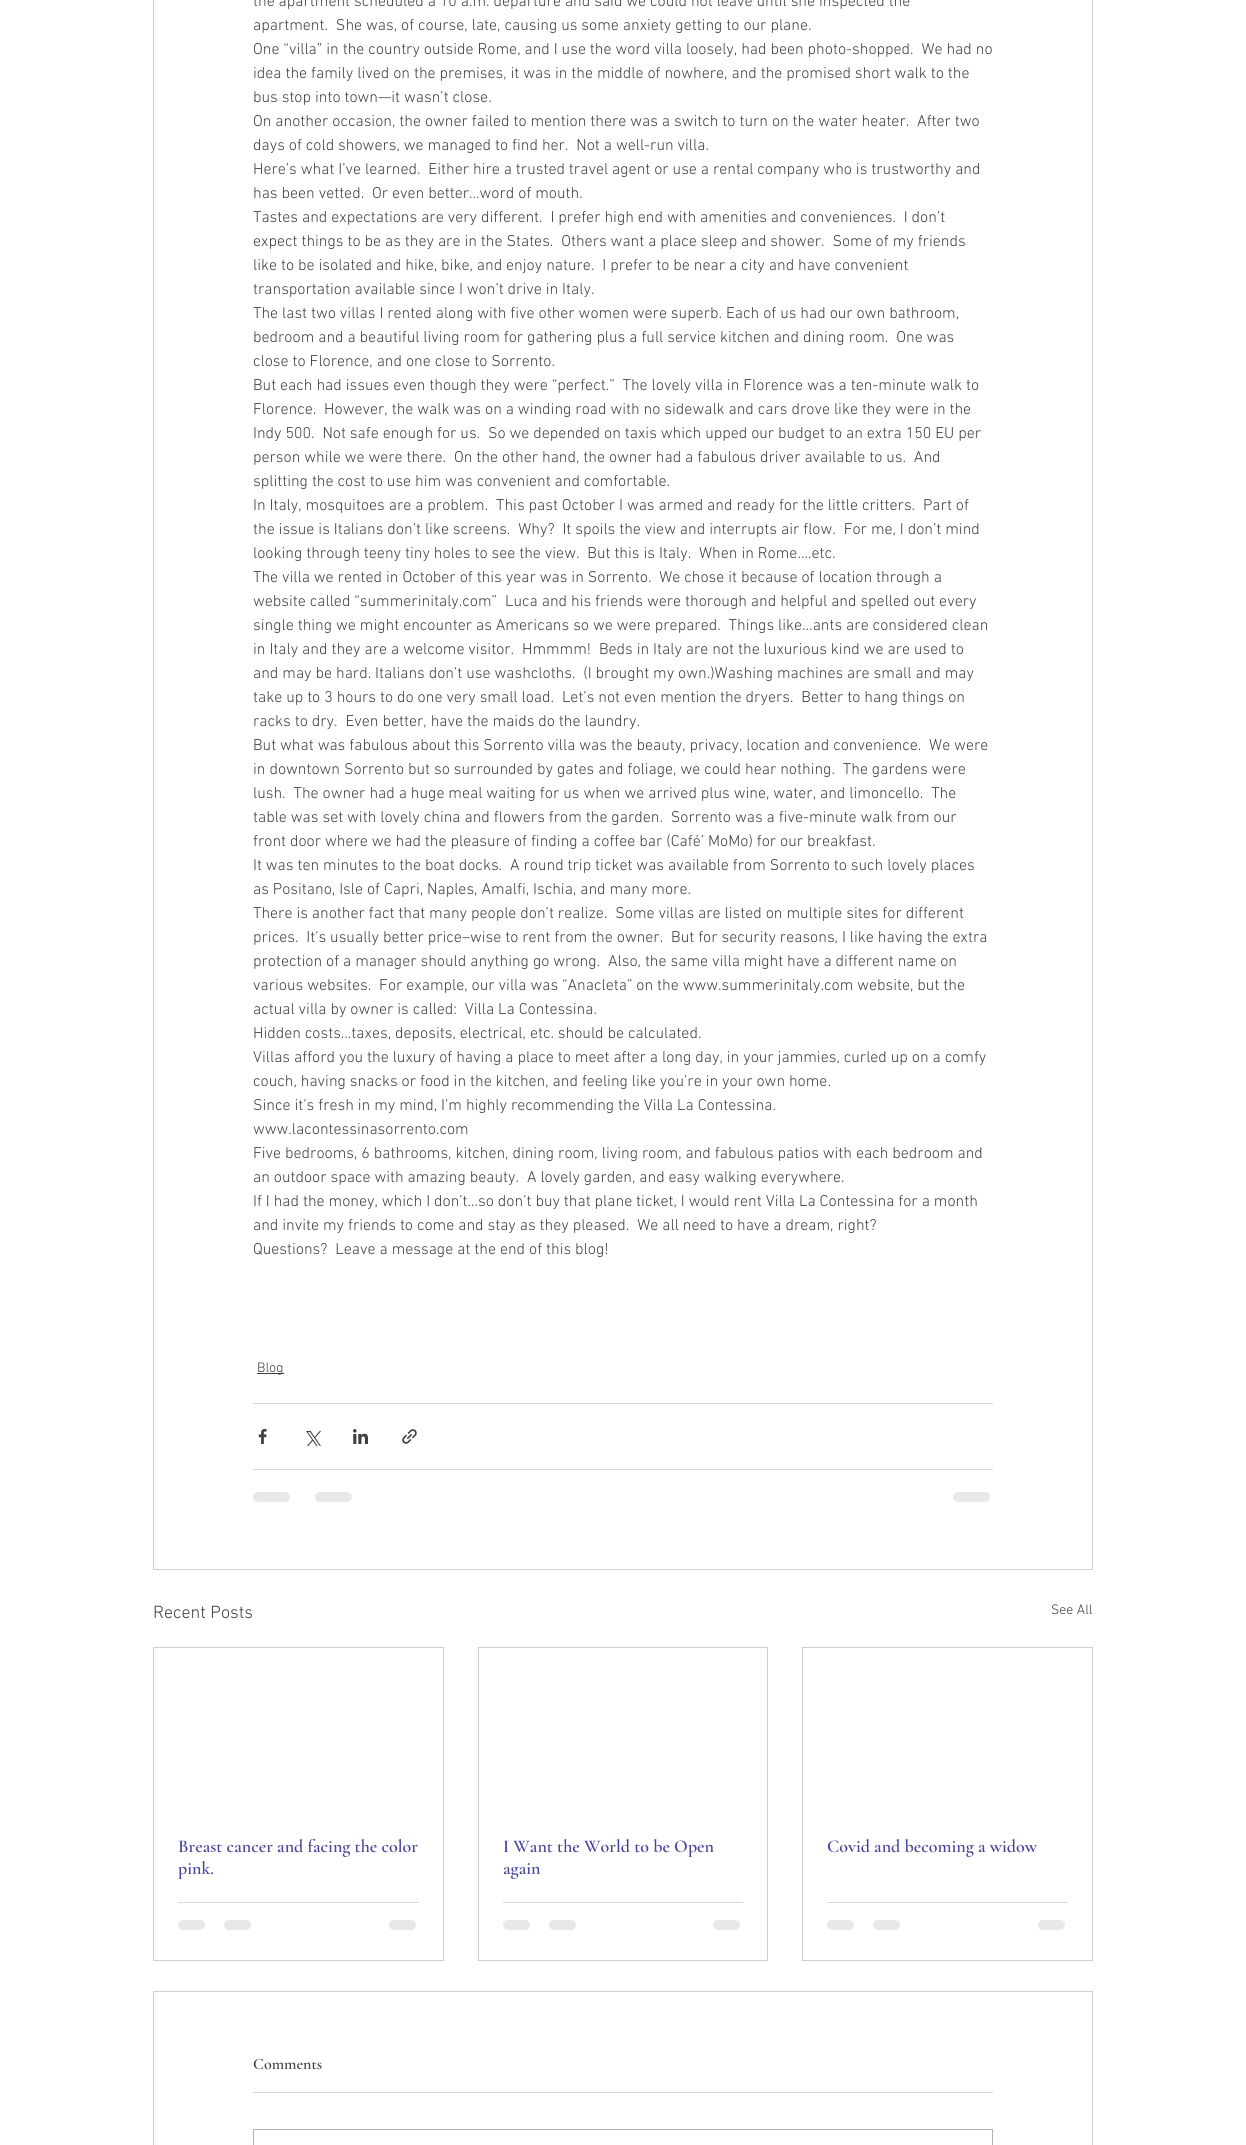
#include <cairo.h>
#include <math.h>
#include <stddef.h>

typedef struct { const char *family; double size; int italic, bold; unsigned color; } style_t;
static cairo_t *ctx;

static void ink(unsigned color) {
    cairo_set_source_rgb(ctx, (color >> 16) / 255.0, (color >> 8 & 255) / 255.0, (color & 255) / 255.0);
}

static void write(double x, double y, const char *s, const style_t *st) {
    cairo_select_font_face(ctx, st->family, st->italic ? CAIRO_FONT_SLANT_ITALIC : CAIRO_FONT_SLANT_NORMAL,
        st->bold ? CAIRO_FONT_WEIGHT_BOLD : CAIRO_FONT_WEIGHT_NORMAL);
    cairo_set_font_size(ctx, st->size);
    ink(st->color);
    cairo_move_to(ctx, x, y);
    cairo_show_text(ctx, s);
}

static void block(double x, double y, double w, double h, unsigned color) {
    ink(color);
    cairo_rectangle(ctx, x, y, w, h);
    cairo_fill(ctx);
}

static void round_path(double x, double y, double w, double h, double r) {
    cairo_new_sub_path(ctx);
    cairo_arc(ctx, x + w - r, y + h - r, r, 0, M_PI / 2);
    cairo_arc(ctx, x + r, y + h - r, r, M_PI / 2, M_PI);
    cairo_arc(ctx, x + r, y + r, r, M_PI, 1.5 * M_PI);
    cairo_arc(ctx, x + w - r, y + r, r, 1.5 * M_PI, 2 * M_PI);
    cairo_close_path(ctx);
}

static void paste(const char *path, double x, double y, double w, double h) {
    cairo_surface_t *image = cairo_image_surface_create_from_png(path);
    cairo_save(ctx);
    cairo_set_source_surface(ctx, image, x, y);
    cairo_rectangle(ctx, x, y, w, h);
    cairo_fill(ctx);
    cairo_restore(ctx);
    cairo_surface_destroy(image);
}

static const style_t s1 = {"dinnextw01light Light", 16, 0, 0, 0x404040};
static const style_t s2 = {"dinnextw01light Light", 14, 0, 0, 0x404040};
static const style_t s3 = {"dinnextw01light Light", 18, 0, 0, 0x404040};
static const style_t s4 = {"Cormorant Garamond SemiBold", 18, 0, 0, 0x454399};
static const style_t s5 = {"Cormorant Garamond SemiBold", 16, 0, 0, 0x404040};

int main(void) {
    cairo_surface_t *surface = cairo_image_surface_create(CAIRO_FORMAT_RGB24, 1246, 2145);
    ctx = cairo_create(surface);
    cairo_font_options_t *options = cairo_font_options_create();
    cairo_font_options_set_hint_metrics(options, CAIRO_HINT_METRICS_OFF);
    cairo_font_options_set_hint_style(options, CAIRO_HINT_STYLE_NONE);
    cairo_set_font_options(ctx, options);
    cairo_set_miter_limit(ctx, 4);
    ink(0xffffff);
    cairo_paint(ctx);
    cairo_rectangle(ctx, 153.5, -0.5, 939, 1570);
    ink(0xcfcfcf);
    cairo_set_line_width(ctx, 1);
    cairo_stroke(ctx);
    write(253, 6, "the apartment scheduled a 10 a.m. departure and said we could not leave until she inspected the", &s1);
    write(253, 30, "apartment.  She was, of course, late, causing us some anxiety getting to our plane.", &s1);
    write(253, 54, "One “villa” in the country outside Rome, and I use the word villa loosely, had been photo-shopped.  We had no", &s1);
    write(253, 78, "idea the family lived on the premises, it was in the middle of nowhere, and the promised short walk to the", &s1);
    write(253, 102, "bus stop into town—it wasn’t close.", &s1);
    write(253, 126, "On another occasion, the owner failed to mention there was a switch to turn on the water heater.  After two", &s1);
    write(253, 150, "days of cold showers, we managed to find her.  Not a well-run villa.", &s1);
    write(253, 174, "Here’s what I’ve learned.  Either hire a trusted travel agent or use a rental company who is trustworthy and", &s1);
    write(253, 198, "has been vetted.  Or even better…word of mouth.", &s1);
    write(253, 222, "Tastes and expectations are very different.  I prefer high end with amenities and conveniences.  I don’t", &s1);
    write(253, 246, "expect things to be as they are in the States.  Others want a place sleep and shower.  Some of my friends", &s1);
    write(253, 270, "like to be isolated and hike, bike, and enjoy nature.  I prefer to be near a city and have convenient", &s1);
    write(253, 294, "transportation available since I won’t drive in Italy.", &s1);
    write(253, 318, "The last two villas I rented along with five other women were superb. Each of us had our own bathroom,", &s1);
    write(253, 342, "bedroom and a beautiful living room for gathering plus a full service kitchen and dining room.  One was", &s1);
    write(253, 366, "close to Florence, and one close to Sorrento.", &s1);
    write(253, 390, "But each had issues even though they were “perfect.”  The lovely villa in Florence was a ten-minute walk to", &s1);
    write(253, 414, "Florence.  However, the walk was on a winding road with no sidewalk and cars drove like they were in the", &s1);
    write(253, 438, "Indy 500.  Not safe enough for us.  So we depended on taxis which upped our budget to an extra 150 EU per", &s1);
    write(253, 462, "person while we were there.  On the other hand, the owner had a fabulous driver available to us.  And", &s1);
    write(253, 486, "splitting the cost to use him was convenient and comfortable.", &s1);
    write(253, 510, "In Italy, mosquitoes are a problem.  This past October I was armed and ready for the little critters.  Part of", &s1);
    write(253, 534, "the issue is Italians don’t like screens.  Why?  It spoils the view and interrupts air flow.  For me, I don’t mind", &s1);
    write(253, 558, "looking through teeny tiny holes to see the view.  But this is Italy.  When in Rome….etc.", &s1);
    write(253, 582, "The villa we rented in October of this year was in Sorrento.  We chose it because of location through a", &s1);
    write(253, 606, "website called “summerinitaly.com”  Luca and his friends were thorough and helpful and spelled out every", &s1);
    write(253, 630, "single thing we might encounter as Americans so we were prepared.  Things like…ants are considered clean", &s1);
    write(253, 654, "in Italy and they are a welcome visitor.  Hmmmm!  Beds in Italy are not the luxurious kind we are used to", &s1);
    write(253, 678, "and may be hard. Italians don’t use washcloths.  (I brought my own.)Washing machines are small and may", &s1);
    write(253, 702, "take up to 3 hours to do one very small load.  Let’s not even mention the dryers.  Better to hang things on", &s1);
    write(253, 726, "racks to dry.  Even better, have the maids do the laundry.", &s1);
    write(253, 750, "But what was fabulous about this Sorrento villa was the beauty, privacy, location and convenience.  We were", &s1);
    write(253, 774, "in downtown Sorrento but so surrounded by gates and foliage, we could hear nothing.  The gardens were", &s1);
    write(253, 798, "lush.  The owner had a huge meal waiting for us when we arrived plus wine, water, and limoncello.  The", &s1);
    write(253, 822, "table was set with lovely china and flowers from the garden.  Sorrento was a five-minute walk from our", &s1);
    write(253, 846, "front door where we had the pleasure of finding a coffee bar (Café’ MoMo) for our breakfast.", &s1);
    write(253, 870, "It was ten minutes to the boat docks.  A round trip ticket was available from Sorrento to such lovely places", &s1);
    write(253, 894, "as Positano, Isle of Capri, Naples, Amalfi, Ischia, and many more.", &s1);
    write(253, 918, "There is another fact that many people don’t realize.  Some villas are listed on multiple sites for different", &s1);
    write(253, 942, "prices.  It’s usually better price–wise to rent from the owner.  But for security reasons, I like having the extra", &s1);
    write(253, 966, "protection of a manager should anything go wrong.  Also, the same villa might have a different name on", &s1);
    write(253, 990, "various websites.  For example, our villa was “Anacleta” on the www.summerinitaly.com website, but the", &s1);
    write(253, 1014, "actual villa by owner is called:  Villa La Contessina.", &s1);
    write(253, 1038, "Hidden costs…taxes, deposits, electrical, etc. should be calculated.", &s1);
    write(253, 1062, "Villas afford you the luxury of having a place to meet after a long day, in your jammies, curled up on a comfy", &s1);
    write(253, 1086, "couch, having snacks or food in the kitchen, and feeling like you’re in your own home.", &s1);
    write(253, 1110, "Since it’s fresh in my mind, I’m highly recommending the Villa La Contessina.", &s1);
    write(253, 1134, "www.lacontessinasorrento.com", &s1);
    write(253, 1158, "Five bedrooms, 6 bathrooms, kitchen, dining room, living room, and fabulous patios with each bedroom and", &s1);
    write(253, 1182, "an outdoor space with amazing beauty.  A lovely garden, and easy walking everywhere.", &s1);
    write(253, 1206, "If I had the money, which I don’t…so don’t buy that plane ticket, I would rent Villa La Contessina for a month", &s1);
    write(253, 1230, "and invite my friends to come and stay as they pleased.  We all need to have a dream, right?", &s1);
    write(253, 1254, "Questions?  Leave a message at the end of this blog!", &s1);
    block(257, 1373, 27, 1, 0x404040);
    write(257, 1372, "Blog", &s2);
    block(253, 1403, 740, 1, 0xd9d9d9);
    paste("pic1.png", 258, 1429, 9, 15);
    paste("pic2.png", 306, 1431, 15, 15);
    paste("pic3.png", 353, 1429, 15, 15);
    paste("pic4.png", 402, 1429, 15, 15);
    block(253, 1469, 740, 1, 0xd9d9d9);
    ink(0xe8e8e8);
    round_path(253, 1492, 37, 10, 5);
    cairo_fill(ctx);
    round_path(315, 1492, 37, 10, 5);
    cairo_fill(ctx);
    round_path(953, 1492, 37, 10, 5);
    cairo_fill(ctx);
    write(153, 1618, "Recent Posts", &s3);
    write(1051, 1614, "See All", &s2);
    cairo_rectangle(ctx, 153.5, 1647.5, 290, 313);
    ink(0xcfcfcf);
    cairo_stroke(ctx);
    write(178, 1852, "Breast cancer and facing the color", &s4);
    write(178, 1874, "pink.", &s4);
    block(178, 1902, 241, 1, 0xd9d9d9);
    ink(0xe8e8e8);
    round_path(178, 1920, 27, 10, 5);
    cairo_fill(ctx);
    round_path(224, 1920, 27, 10, 5);
    cairo_fill(ctx);
    round_path(389, 1920, 27, 10, 5);
    cairo_fill(ctx);
    cairo_rectangle(ctx, 478.5, 1647.5, 289, 313);
    ink(0xcfcfcf);
    cairo_stroke(ctx);
    write(503, 1852, "I Want the World to be Open", &s4);
    write(503, 1874, "again", &s4);
    block(503, 1902, 240, 1, 0xd9d9d9);
    ink(0xe8e8e8);
    round_path(503, 1920, 27, 10, 5);
    cairo_fill(ctx);
    round_path(549, 1920, 27, 10, 5);
    cairo_fill(ctx);
    round_path(713, 1920, 27, 10, 5);
    cairo_fill(ctx);
    cairo_rectangle(ctx, 802.5, 1647.5, 290, 313);
    ink(0xcfcfcf);
    cairo_stroke(ctx);
    write(827, 1852, "Covid and becoming a widow", &s4);
    block(827, 1902, 241, 1, 0xd9d9d9);
    ink(0xe8e8e8);
    round_path(827, 1920, 27, 10, 5);
    cairo_fill(ctx);
    round_path(873, 1920, 27, 10, 5);
    cairo_fill(ctx);
    round_path(1038, 1920, 27, 10, 5);
    cairo_fill(ctx);
    cairo_rectangle(ctx, 153.5, 1991.5, 939, 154);
    ink(0xcfcfcf);
    cairo_stroke(ctx);
    write(253, 2069, "Comments", &s5);
    block(253, 2092, 740, 1, 0xd9d9d9);
    cairo_rectangle(ctx, 253.5, 2129.5, 739, 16);
    ink(0xb3b3b3);
    cairo_stroke(ctx);
    cairo_surface_write_to_png(surface, "screenshot.png");
    cairo_font_options_destroy(options);
    cairo_destroy(ctx);
    cairo_surface_destroy(surface);
    return 0;
}
